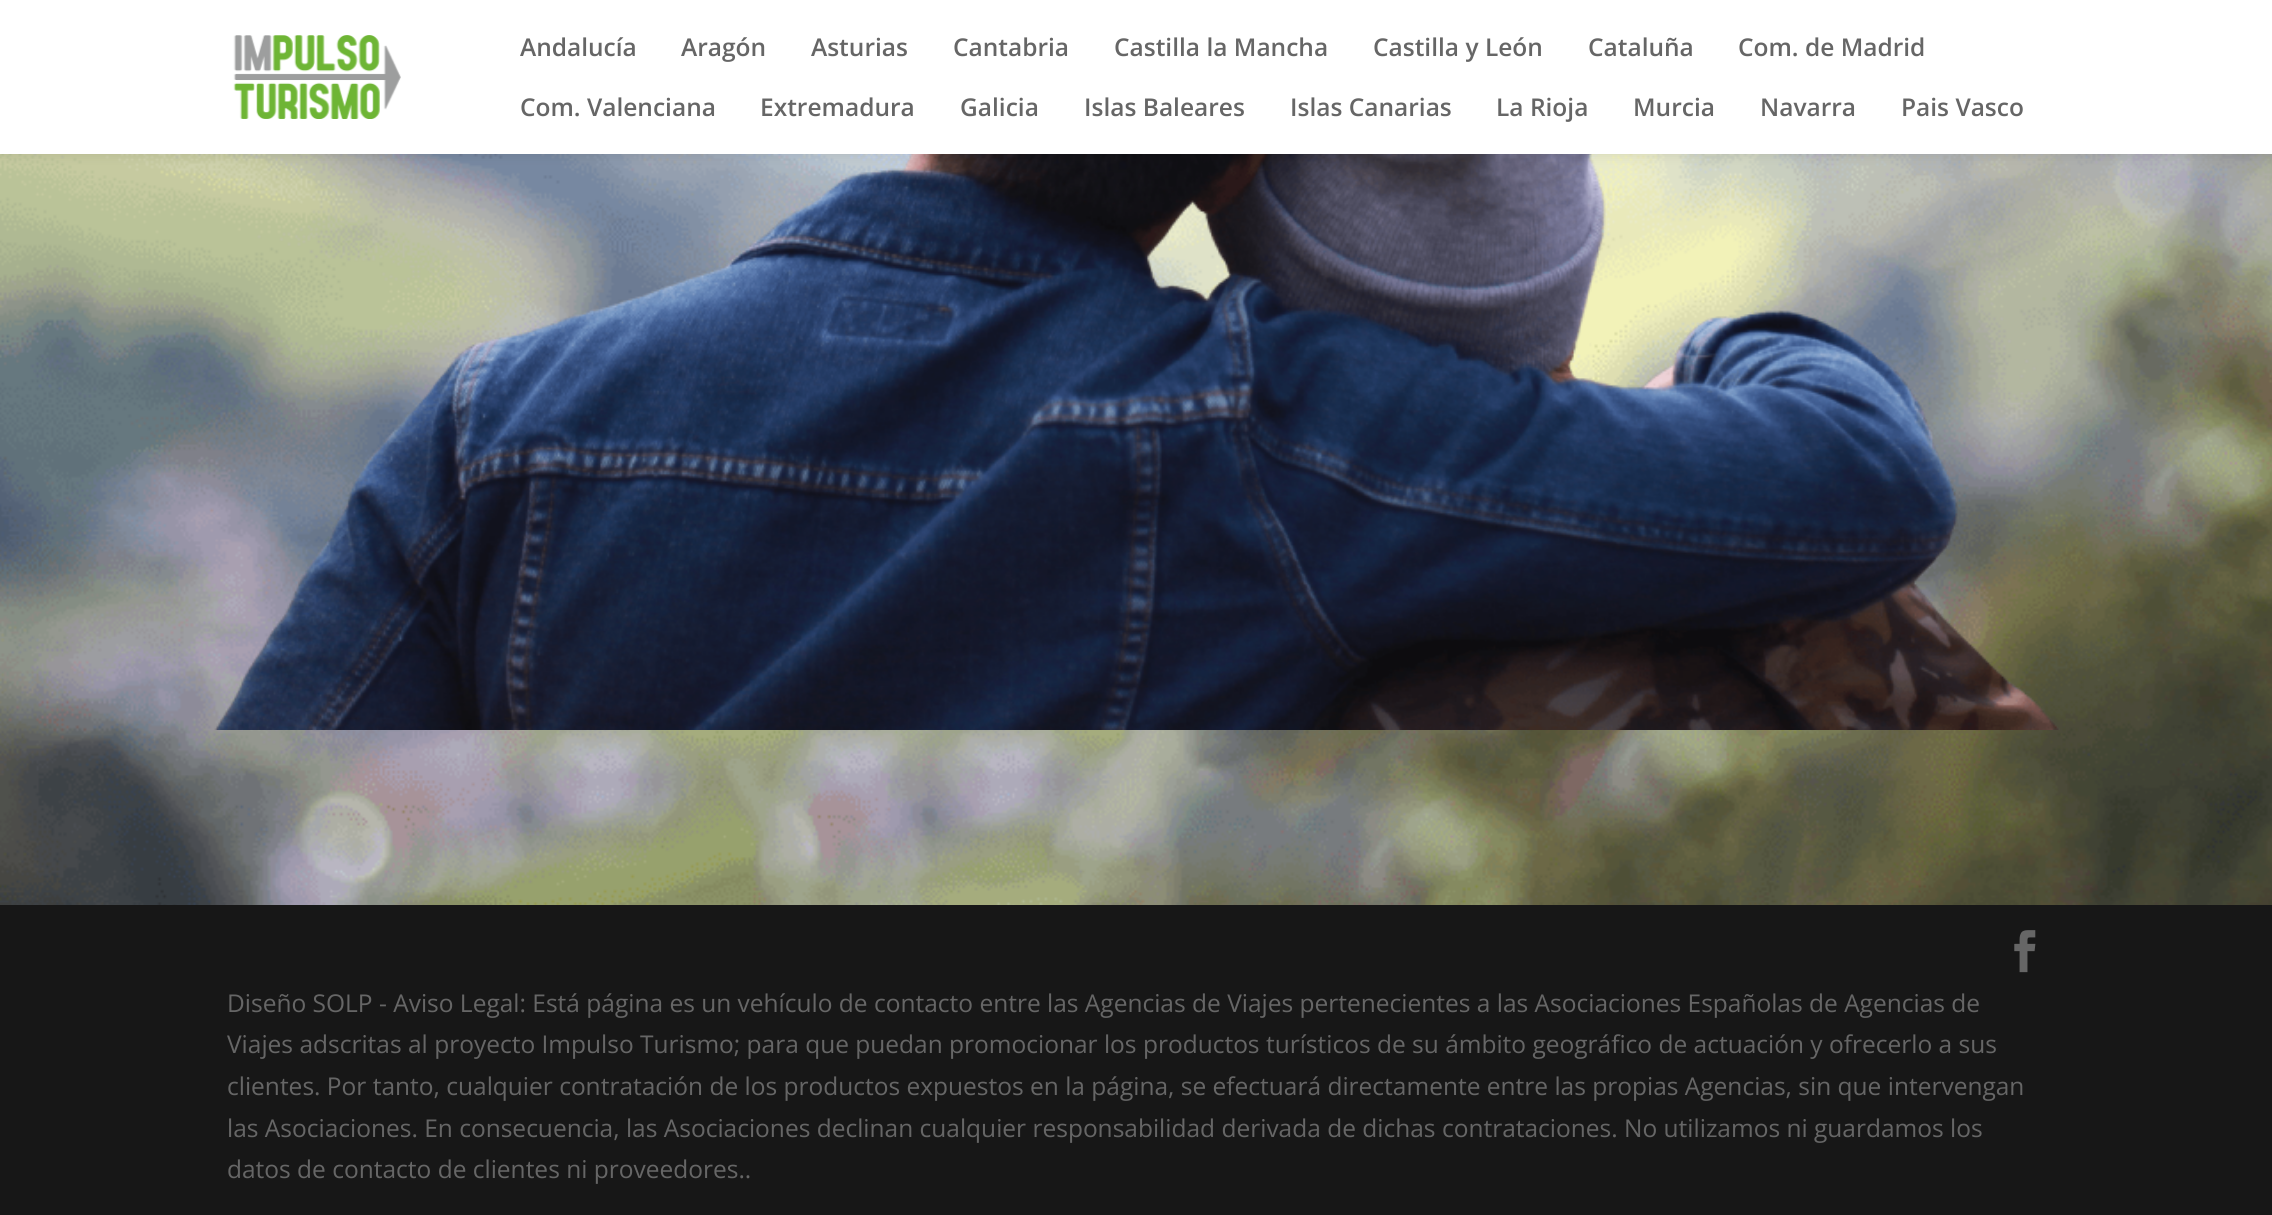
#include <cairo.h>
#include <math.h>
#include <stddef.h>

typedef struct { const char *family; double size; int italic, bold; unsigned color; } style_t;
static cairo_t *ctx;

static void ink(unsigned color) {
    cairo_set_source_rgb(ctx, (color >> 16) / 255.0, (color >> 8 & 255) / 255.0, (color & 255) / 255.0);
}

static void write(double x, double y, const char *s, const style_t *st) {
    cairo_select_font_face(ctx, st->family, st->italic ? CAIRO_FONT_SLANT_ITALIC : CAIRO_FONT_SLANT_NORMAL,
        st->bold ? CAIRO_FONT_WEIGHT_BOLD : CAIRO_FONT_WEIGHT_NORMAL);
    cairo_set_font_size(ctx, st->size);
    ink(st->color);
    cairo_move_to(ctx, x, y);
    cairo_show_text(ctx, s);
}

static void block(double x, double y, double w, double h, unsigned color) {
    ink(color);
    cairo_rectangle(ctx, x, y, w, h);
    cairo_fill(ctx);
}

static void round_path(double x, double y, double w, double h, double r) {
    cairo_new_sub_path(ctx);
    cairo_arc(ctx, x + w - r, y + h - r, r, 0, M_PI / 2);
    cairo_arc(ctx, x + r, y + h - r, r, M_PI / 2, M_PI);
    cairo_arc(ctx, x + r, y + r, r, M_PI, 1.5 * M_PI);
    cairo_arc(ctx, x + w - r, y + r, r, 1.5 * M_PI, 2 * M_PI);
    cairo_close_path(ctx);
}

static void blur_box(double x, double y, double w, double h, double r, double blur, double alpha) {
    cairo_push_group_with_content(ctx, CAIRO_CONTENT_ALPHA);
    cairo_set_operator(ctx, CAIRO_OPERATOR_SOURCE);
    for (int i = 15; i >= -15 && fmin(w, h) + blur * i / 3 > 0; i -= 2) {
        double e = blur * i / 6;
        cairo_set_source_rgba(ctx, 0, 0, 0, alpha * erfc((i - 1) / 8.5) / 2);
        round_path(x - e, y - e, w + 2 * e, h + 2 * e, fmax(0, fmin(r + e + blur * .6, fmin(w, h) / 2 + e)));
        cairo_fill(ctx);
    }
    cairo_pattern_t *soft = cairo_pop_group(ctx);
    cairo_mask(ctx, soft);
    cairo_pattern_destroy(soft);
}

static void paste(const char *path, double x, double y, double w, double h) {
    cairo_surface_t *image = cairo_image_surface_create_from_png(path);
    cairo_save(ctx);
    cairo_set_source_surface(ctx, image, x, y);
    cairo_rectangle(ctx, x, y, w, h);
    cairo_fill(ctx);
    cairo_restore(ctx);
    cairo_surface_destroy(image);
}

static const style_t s1 = {"Open Sans SemiBold", 24.5, 0, 0, 0x666666};
static const style_t s2 = {"Open Sans", 24.5, 0, 0, 0x666666};

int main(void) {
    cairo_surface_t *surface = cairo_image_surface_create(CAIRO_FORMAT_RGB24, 2272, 1215);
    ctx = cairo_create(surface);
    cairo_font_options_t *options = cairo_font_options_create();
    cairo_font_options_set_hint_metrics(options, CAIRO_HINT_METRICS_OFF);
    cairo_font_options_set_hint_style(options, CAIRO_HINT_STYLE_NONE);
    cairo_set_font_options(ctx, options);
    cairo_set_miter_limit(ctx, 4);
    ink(0x171717);
    cairo_paint(ctx);
    paste("pic2.png", 0, 154, 2272, 751);
    paste("pic3.png", 214, 154, 1846, 576);
    ink(0x000000);
    blur_box(0, 0, 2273, 154, 0, 6, 0.1);
    block(0, 0, 2272, 154, 0xffffff);
    paste("pic1.png", 233, 35, 168, 84);
    write(520, 56, "Andalucía", &s1);
    write(681, 56, "Aragón", &s1);
    write(811, 56, "Asturias", &s1);
    write(953, 56, "Cantabria", &s1);
    write(1114, 56, "Castilla la Mancha", &s1);
    write(1373, 56, "Castilla y León", &s1);
    write(1588, 56, "Cataluña", &s1);
    write(1738, 56, "Com. de Madrid", &s1);
    write(520, 116, "Com. Valenciana", &s1);
    write(760, 116, "Extremadura", &s1);
    write(960, 116, "Galicia", &s1);
    write(1084, 116, "Islas Baleares", &s1);
    write(1290, 116, "Islas Canarias", &s1);
    write(1496, 116, "La Rioja", &s1);
    write(1633, 116, "Murcia", &s1);
    write(1760, 116, "Navarra", &s1);
    write(1901, 116, "Pais Vasco", &s1);
    paste("pic4.png", 2014, 930, 22, 43);
    write(227, 1012, "Diseño SOLP - Aviso Legal: Está página es un vehículo de contacto entre las Agencias de Viajes pertenecientes a las Asociaciones Españolas de Agencias de", &s2);
    write(227, 1053, "Viajes adscritas al proyecto Impulso Turismo; para que puedan promocionar los productos turísticos de su ámbito geográfico de actuación y ofrecerlo a sus", &s2);
    write(227, 1095, "clientes. Por tanto, cualquier contratación de los productos expuestos en la página, se efectuará directamente entre las propias Agencias, sin que intervengan", &s2);
    write(227, 1137, "las Asociaciones. En consecuencia, las Asociaciones declinan cualquier responsabilidad derivada de dichas contrataciones. No utilizamos ni guardamos los", &s2);
    write(227, 1178, "datos de contacto de clientes ni proveedores..", &s2);
    cairo_surface_write_to_png(surface, "screenshot.png");
    cairo_font_options_destroy(options);
    cairo_destroy(ctx);
    cairo_surface_destroy(surface);
    return 0;
}
